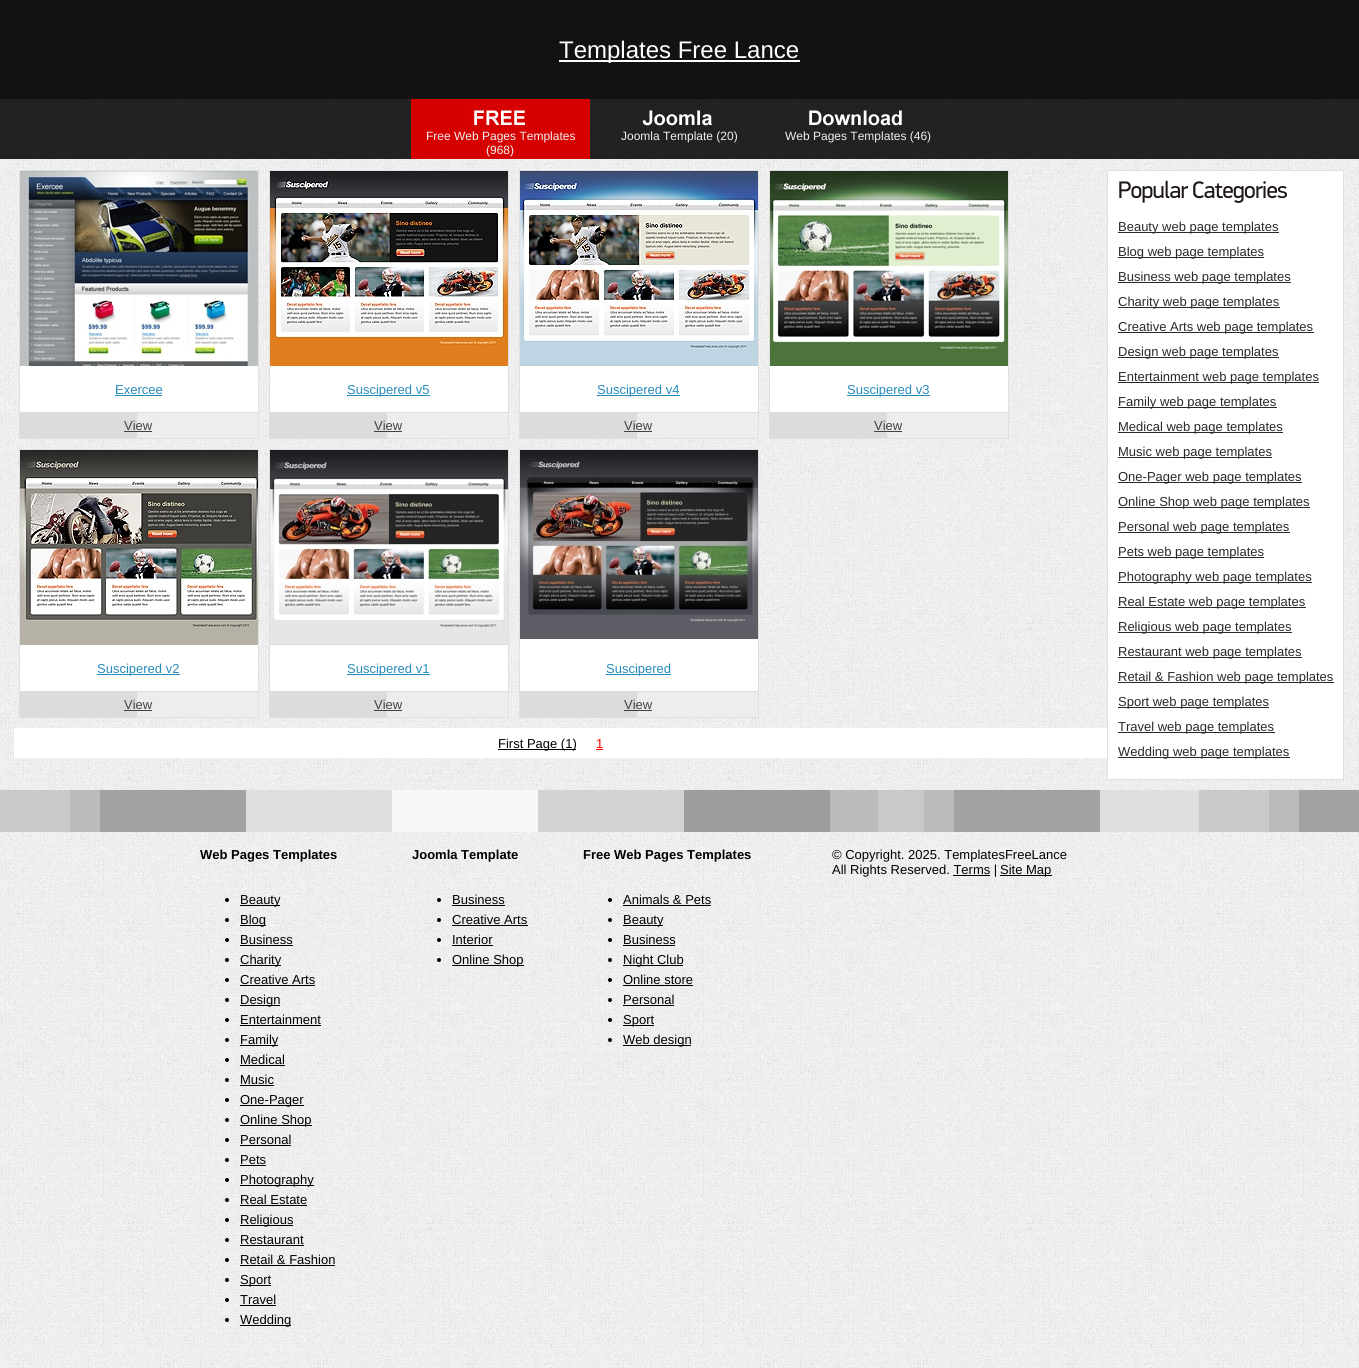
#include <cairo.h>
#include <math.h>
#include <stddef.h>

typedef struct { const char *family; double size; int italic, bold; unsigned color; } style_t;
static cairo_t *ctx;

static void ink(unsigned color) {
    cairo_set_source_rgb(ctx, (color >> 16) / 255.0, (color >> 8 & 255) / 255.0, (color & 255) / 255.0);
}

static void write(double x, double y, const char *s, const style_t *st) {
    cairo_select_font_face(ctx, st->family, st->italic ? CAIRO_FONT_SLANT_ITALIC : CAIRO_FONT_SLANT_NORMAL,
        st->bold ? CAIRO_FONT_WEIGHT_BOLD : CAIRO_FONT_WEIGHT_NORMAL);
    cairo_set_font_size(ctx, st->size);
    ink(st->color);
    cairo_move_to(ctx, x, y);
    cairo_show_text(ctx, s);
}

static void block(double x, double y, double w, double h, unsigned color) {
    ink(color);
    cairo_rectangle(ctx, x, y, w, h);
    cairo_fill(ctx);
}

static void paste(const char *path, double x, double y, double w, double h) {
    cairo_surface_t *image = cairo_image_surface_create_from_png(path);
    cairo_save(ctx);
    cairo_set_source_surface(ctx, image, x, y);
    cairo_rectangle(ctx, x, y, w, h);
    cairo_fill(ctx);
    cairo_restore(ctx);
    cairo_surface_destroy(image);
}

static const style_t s1 = {"Liberation Sans", 24, 0, 0, 0xffffff};
static const style_t s2 = {"Liberation Sans", 12, 0, 0, 0xf0f0f0};
static const style_t s3 = {"Liberation Sans", 13, 0, 0, 0x258bba};
static const style_t s4 = {"Liberation Sans", 13, 0, 0, 0x414141};
static const style_t s5 = {"Liberation Sans", 13, 0, 0, 0x000000};
static const style_t s6 = {"Liberation Sans", 13, 0, 0, 0xff0000};
static const style_t s7 = {"Liberation Sans", 13, 0, 0, 0x292929};
static const style_t s8 = {"Liberation Sans", 13, 0, 1, 0x000000};

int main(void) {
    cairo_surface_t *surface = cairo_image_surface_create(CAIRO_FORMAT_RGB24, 1359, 1368);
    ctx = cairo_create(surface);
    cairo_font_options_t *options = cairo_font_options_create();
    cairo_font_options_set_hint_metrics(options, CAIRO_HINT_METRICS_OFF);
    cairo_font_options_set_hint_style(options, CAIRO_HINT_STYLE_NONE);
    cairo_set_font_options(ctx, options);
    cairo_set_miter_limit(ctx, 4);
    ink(0xffffff);
    cairo_paint(ctx);
    paste("pic1.png", 0, 159, 1359, 1209);
    block(0, 0, 1359, 99, 0x121212);
    block(559, 60, 241, 2, 0xffffff);
    write(559, 58, "Templates Free Lance", &s1);
    paste("pic2.png", 0, 99, 1359, 60);
    block(411, 99, 179, 60, 0xd70000);
    paste("pic3.png", 471, 110, 54, 15);
    write(426, 140, "Free Web Pages Templates", &s2);
    write(486, 154, "(968)", &s2);
    paste("pic4.png", 642, 110, 70, 16);
    write(621, 140, "Joomla Template (20)", &s2);
    paste("pic5.png", 809, 110, 93, 16);
    write(785, 140, "Web Pages Templates (46)", &s2);
    block(20, 366, 238, 46, 0xffffff);
    cairo_rectangle(ctx, 19.5, 170.5, 239, 268);
    ink(0xe0e0e0);
    cairo_set_line_width(ctx, 1);
    cairo_stroke(ctx);
    paste("pic6.png", 20, 171, 238, 195);
    write(115, 394, "Exercee", &s3);
    block(115, 395, 47, 1, 0x258bba);
    paste("pic7.png", 20, 412, 238, 26);
    write(124, 430, "View", &s4);
    block(124, 431, 28, 1, 0x414141);
    block(270, 366, 238, 46, 0xffffff);
    cairo_rectangle(ctx, 269.5, 170.5, 239, 268);
    ink(0xe0e0e0);
    cairo_stroke(ctx);
    paste("pic8.png", 270, 171, 238, 195);
    block(347, 395, 83, 1, 0x258bba);
    write(347, 394, "Suscipered v5", &s3);
    paste("pic7.png", 270, 412, 238, 26);
    write(374, 430, "View", &s4);
    block(374, 431, 28, 1, 0x414141);
    block(520, 366, 238, 46, 0xffffff);
    cairo_rectangle(ctx, 519.5, 170.5, 239, 268);
    ink(0xe0e0e0);
    cairo_stroke(ctx);
    paste("pic9.png", 520, 171, 238, 195);
    block(597, 395, 83, 1, 0x258bba);
    write(597, 394, "Suscipered v4", &s3);
    paste("pic7.png", 520, 412, 238, 26);
    write(624, 430, "View", &s4);
    block(624, 431, 28, 1, 0x414141);
    block(770, 366, 238, 46, 0xffffff);
    cairo_rectangle(ctx, 769.5, 170.5, 239, 268);
    ink(0xe0e0e0);
    cairo_stroke(ctx);
    paste("pic10.png", 770, 171, 238, 195);
    block(847, 395, 83, 1, 0x258bba);
    write(847, 394, "Suscipered v3", &s3);
    paste("pic7.png", 770, 412, 238, 26);
    write(874, 430, "View", &s4);
    block(874, 431, 28, 1, 0x414141);
    block(20, 645, 238, 46, 0xffffff);
    cairo_rectangle(ctx, 19.5, 449.5, 239, 268);
    ink(0xe0e0e0);
    cairo_stroke(ctx);
    paste("pic11.png", 20, 450, 238, 195);
    block(97, 674, 83, 1, 0x258bba);
    write(97, 673, "Suscipered v2", &s3);
    paste("pic7.png", 20, 691, 238, 26);
    write(124, 709, "View", &s4);
    block(124, 710, 28, 1, 0x414141);
    block(270, 645, 238, 46, 0xffffff);
    cairo_rectangle(ctx, 269.5, 449.5, 239, 268);
    ink(0xe0e0e0);
    cairo_stroke(ctx);
    paste("pic12.png", 270, 450, 238, 195);
    block(347, 674, 83, 1, 0x258bba);
    write(347, 673, "Suscipered v1", &s3);
    paste("pic7.png", 270, 691, 238, 26);
    write(374, 709, "View", &s4);
    block(374, 710, 28, 1, 0x414141);
    block(520, 639, 238, 52, 0xffffff);
    cairo_rectangle(ctx, 519.5, 449.5, 239, 268);
    ink(0xe0e0e0);
    cairo_stroke(ctx);
    paste("pic13.png", 520, 450, 238, 189);
    block(606, 674, 65, 1, 0x258bba);
    write(606, 673, "Suscipered", &s3);
    paste("pic7.png", 520, 691, 238, 26);
    write(624, 709, "View", &s4);
    block(624, 710, 28, 1, 0x414141);
    block(14, 728, 1093, 30, 0xffffff);
    block(498, 749, 78, 1, 0x000000);
    write(498, 748, "First Page (1)", &s5);
    write(596, 748, "1", &s6);
    block(596, 749, 7, 1, 0xff0000);
    cairo_rectangle(ctx, 1107.5, 170.5, 236, 609);
    ink(0xe0e0e0);
    cairo_stroke(ctx);
    block(1108, 171, 235, 608, 0xffffff);
    paste("pic14.png", 1119, 180, 168, 23);
    block(1118, 232, 161, 1, 0x292929);
    write(1118, 231, "Beauty web page templates", &s7);
    block(1118, 257, 146, 1, 0x292929);
    write(1118, 256, "Blog web page templates", &s7);
    block(1118, 282, 173, 1, 0x292929);
    write(1118, 281, "Business web page templates", &s7);
    block(1118, 307, 162, 1, 0x292929);
    write(1118, 306, "Charity web page templates", &s7);
    block(1118, 332, 196, 1, 0x292929);
    write(1118, 331, "Creative Arts web page templates", &s7);
    block(1118, 357, 161, 1, 0x292929);
    write(1118, 356, "Design web page templates", &s7);
    block(1118, 382, 201, 1, 0x292929);
    write(1118, 381, "Entertainment web page templates", &s7);
    block(1118, 407, 159, 1, 0x292929);
    write(1118, 406, "Family web page templates", &s7);
    block(1118, 432, 165, 1, 0x292929);
    write(1118, 431, "Medical web page templates", &s7);
    block(1118, 457, 154, 1, 0x292929);
    write(1118, 456, "Music web page templates", &s7);
    block(1118, 482, 184, 1, 0x292929);
    write(1118, 481, "One-Pager web page templates", &s7);
    block(1118, 507, 192, 1, 0x292929);
    write(1118, 506, "Online Shop web page templates", &s7);
    block(1118, 532, 172, 1, 0x292929);
    write(1118, 531, "Personal web page templates", &s7);
    block(1118, 557, 146, 1, 0x292929);
    write(1118, 556, "Pets web page templates", &s7);
    block(1118, 582, 194, 1, 0x292929);
    write(1118, 581, "Photography web page templates", &s7);
    block(1118, 607, 188, 1, 0x292929);
    write(1118, 606, "Real Estate web page templates", &s7);
    block(1118, 632, 174, 1, 0x292929);
    write(1118, 631, "Religious web page templates", &s7);
    block(1118, 657, 184, 1, 0x292929);
    write(1118, 656, "Restaurant web page templates", &s7);
    block(1118, 682, 216, 1, 0x292929);
    write(1118, 681, "Retail & Fashion web page templates", &s7);
    block(1118, 707, 151, 1, 0x292929);
    write(1118, 706, "Sport web page templates", &s7);
    block(1118, 732, 157, 1, 0x292929);
    write(1118, 731, "Travel web page templates", &s7);
    block(1118, 757, 172, 1, 0x292929);
    write(1118, 756, "Wedding web page templates", &s7);
    paste("pic15.png", 0, 790, 1359, 42);
    write(200, 859, "Web Pages Templates", &s8);
    cairo_new_path(ctx);
    cairo_arc(ctx, 227, 900, 2, 0, 2 * M_PI);
    cairo_fill(ctx);
    block(240, 905, 40, 1, 0x000000);
    write(240, 904, "Beauty", &s5);
    cairo_new_path(ctx);
    cairo_arc(ctx, 227, 920, 2, 0, 2 * M_PI);
    cairo_fill(ctx);
    block(240, 925, 26, 1, 0x000000);
    write(240, 924, "Blog", &s5);
    cairo_new_path(ctx);
    cairo_arc(ctx, 227, 940, 2, 0, 2 * M_PI);
    cairo_fill(ctx);
    write(240, 944, "Business", &s5);
    block(240, 945, 53, 1, 0x000000);
    cairo_new_path(ctx);
    cairo_arc(ctx, 227, 960, 2, 0, 2 * M_PI);
    cairo_fill(ctx);
    block(240, 965, 41, 1, 0x000000);
    write(240, 964, "Charity", &s5);
    cairo_new_path(ctx);
    cairo_arc(ctx, 227, 980, 2, 0, 2 * M_PI);
    cairo_fill(ctx);
    write(240, 984, "Creative Arts", &s5);
    block(240, 985, 75, 1, 0x000000);
    cairo_new_path(ctx);
    cairo_arc(ctx, 227, 1000, 2, 0, 2 * M_PI);
    cairo_fill(ctx);
    block(240, 1005, 40, 1, 0x000000);
    write(240, 1004, "Design", &s5);
    cairo_new_path(ctx);
    cairo_arc(ctx, 227, 1020, 2, 0, 2 * M_PI);
    cairo_fill(ctx);
    write(240, 1024, "Entertainment", &s5);
    block(240, 1025, 81, 1, 0x000000);
    cairo_new_path(ctx);
    cairo_arc(ctx, 227, 1040, 2, 0, 2 * M_PI);
    cairo_fill(ctx);
    block(240, 1045, 38, 1, 0x000000);
    write(240, 1044, "Family", &s5);
    cairo_new_path(ctx);
    cairo_arc(ctx, 227, 1060, 2, 0, 2 * M_PI);
    cairo_fill(ctx);
    write(240, 1064, "Medical", &s5);
    block(240, 1065, 45, 1, 0x000000);
    cairo_new_path(ctx);
    cairo_arc(ctx, 227, 1080, 2, 0, 2 * M_PI);
    cairo_fill(ctx);
    write(240, 1084, "Music", &s5);
    block(240, 1085, 34, 1, 0x000000);
    cairo_new_path(ctx);
    cairo_arc(ctx, 227, 1100, 2, 0, 2 * M_PI);
    cairo_fill(ctx);
    block(240, 1105, 64, 1, 0x000000);
    write(240, 1104, "One-Pager", &s5);
    cairo_new_path(ctx);
    cairo_arc(ctx, 227, 1120, 2, 0, 2 * M_PI);
    cairo_fill(ctx);
    block(240, 1125, 72, 1, 0x000000);
    write(240, 1124, "Online Shop", &s5);
    cairo_new_path(ctx);
    cairo_arc(ctx, 227, 1140, 2, 0, 2 * M_PI);
    cairo_fill(ctx);
    write(240, 1144, "Personal", &s5);
    block(240, 1145, 51, 1, 0x000000);
    cairo_new_path(ctx);
    cairo_arc(ctx, 227, 1160, 2, 0, 2 * M_PI);
    cairo_fill(ctx);
    write(240, 1164, "Pets", &s5);
    block(240, 1165, 26, 1, 0x000000);
    cairo_new_path(ctx);
    cairo_arc(ctx, 227, 1180, 2, 0, 2 * M_PI);
    cairo_fill(ctx);
    block(240, 1185, 74, 1, 0x000000);
    write(240, 1184, "Photography", &s5);
    cairo_new_path(ctx);
    cairo_arc(ctx, 227, 1200, 2, 0, 2 * M_PI);
    cairo_fill(ctx);
    write(240, 1204, "Real Estate", &s5);
    block(240, 1205, 67, 1, 0x000000);
    cairo_new_path(ctx);
    cairo_arc(ctx, 227, 1220, 2, 0, 2 * M_PI);
    cairo_fill(ctx);
    block(240, 1225, 53, 1, 0x000000);
    write(240, 1224, "Religious", &s5);
    cairo_new_path(ctx);
    cairo_arc(ctx, 227, 1240, 2, 0, 2 * M_PI);
    cairo_fill(ctx);
    write(240, 1244, "Restaurant", &s5);
    block(240, 1245, 64, 1, 0x000000);
    cairo_new_path(ctx);
    cairo_arc(ctx, 227, 1260, 2, 0, 2 * M_PI);
    cairo_fill(ctx);
    write(240, 1264, "Retail & Fashion", &s5);
    block(240, 1265, 95, 1, 0x000000);
    cairo_new_path(ctx);
    cairo_arc(ctx, 227, 1280, 2, 0, 2 * M_PI);
    cairo_fill(ctx);
    block(240, 1285, 31, 1, 0x000000);
    write(240, 1284, "Sport", &s5);
    cairo_new_path(ctx);
    cairo_arc(ctx, 227, 1300, 2, 0, 2 * M_PI);
    cairo_fill(ctx);
    write(240, 1304, "Travel", &s5);
    block(240, 1305, 36, 1, 0x000000);
    cairo_new_path(ctx);
    cairo_arc(ctx, 227, 1320, 2, 0, 2 * M_PI);
    cairo_fill(ctx);
    block(240, 1325, 51, 1, 0x000000);
    write(240, 1324, "Wedding", &s5);
    write(412, 859, "Joomla Template", &s8);
    cairo_new_path(ctx);
    cairo_arc(ctx, 439, 900, 2, 0, 2 * M_PI);
    cairo_fill(ctx);
    write(452, 904, "Business", &s5);
    block(452, 905, 53, 1, 0x000000);
    cairo_new_path(ctx);
    cairo_arc(ctx, 439, 920, 2, 0, 2 * M_PI);
    cairo_fill(ctx);
    write(452, 924, "Creative Arts", &s5);
    block(452, 925, 76, 1, 0x000000);
    cairo_new_path(ctx);
    cairo_arc(ctx, 439, 940, 2, 0, 2 * M_PI);
    cairo_fill(ctx);
    write(452, 944, "Interior", &s5);
    block(452, 945, 41, 1, 0x000000);
    cairo_new_path(ctx);
    cairo_arc(ctx, 439, 960, 2, 0, 2 * M_PI);
    cairo_fill(ctx);
    block(452, 965, 72, 1, 0x000000);
    write(452, 964, "Online Shop", &s5);
    write(583, 859, "Free Web Pages Templates", &s8);
    cairo_new_path(ctx);
    cairo_arc(ctx, 610, 900, 2, 0, 2 * M_PI);
    cairo_fill(ctx);
    write(623, 904, "Animals & Pets", &s5);
    block(623, 905, 88, 1, 0x000000);
    cairo_new_path(ctx);
    cairo_arc(ctx, 610, 920, 2, 0, 2 * M_PI);
    cairo_fill(ctx);
    block(623, 925, 40, 1, 0x000000);
    write(623, 924, "Beauty", &s5);
    cairo_new_path(ctx);
    cairo_arc(ctx, 610, 940, 2, 0, 2 * M_PI);
    cairo_fill(ctx);
    write(623, 944, "Business", &s5);
    block(623, 945, 52, 1, 0x000000);
    cairo_new_path(ctx);
    cairo_arc(ctx, 610, 960, 2, 0, 2 * M_PI);
    cairo_fill(ctx);
    block(623, 965, 60, 1, 0x000000);
    write(623, 964, "Night Club", &s5);
    cairo_new_path(ctx);
    cairo_arc(ctx, 610, 980, 2, 0, 2 * M_PI);
    cairo_fill(ctx);
    write(623, 984, "Online store", &s5);
    block(623, 985, 70, 1, 0x000000);
    cairo_new_path(ctx);
    cairo_arc(ctx, 610, 1000, 2, 0, 2 * M_PI);
    cairo_fill(ctx);
    write(623, 1004, "Personal", &s5);
    block(623, 1005, 51, 1, 0x000000);
    cairo_new_path(ctx);
    cairo_arc(ctx, 610, 1020, 2, 0, 2 * M_PI);
    cairo_fill(ctx);
    block(623, 1025, 31, 1, 0x000000);
    write(623, 1024, "Sport", &s5);
    cairo_new_path(ctx);
    cairo_arc(ctx, 610, 1040, 2, 0, 2 * M_PI);
    cairo_fill(ctx);
    block(623, 1045, 68, 1, 0x000000);
    write(623, 1044, "Web design", &s5);
    write(832, 859, "© Copyright. 2025. TemplatesFreeLance", &s5);
    write(832, 874, "All Rights Reserved. Terms |", &s5);
    block(1000, 875, 52, 1, 0x000000);
    write(1000, 874, "Site Map", &s5);
    block(953, 875, 37, 1, 0x000000);
    cairo_surface_write_to_png(surface, "screenshot.png");
    cairo_font_options_destroy(options);
    cairo_destroy(ctx);
    cairo_surface_destroy(surface);
    return 0;
}
